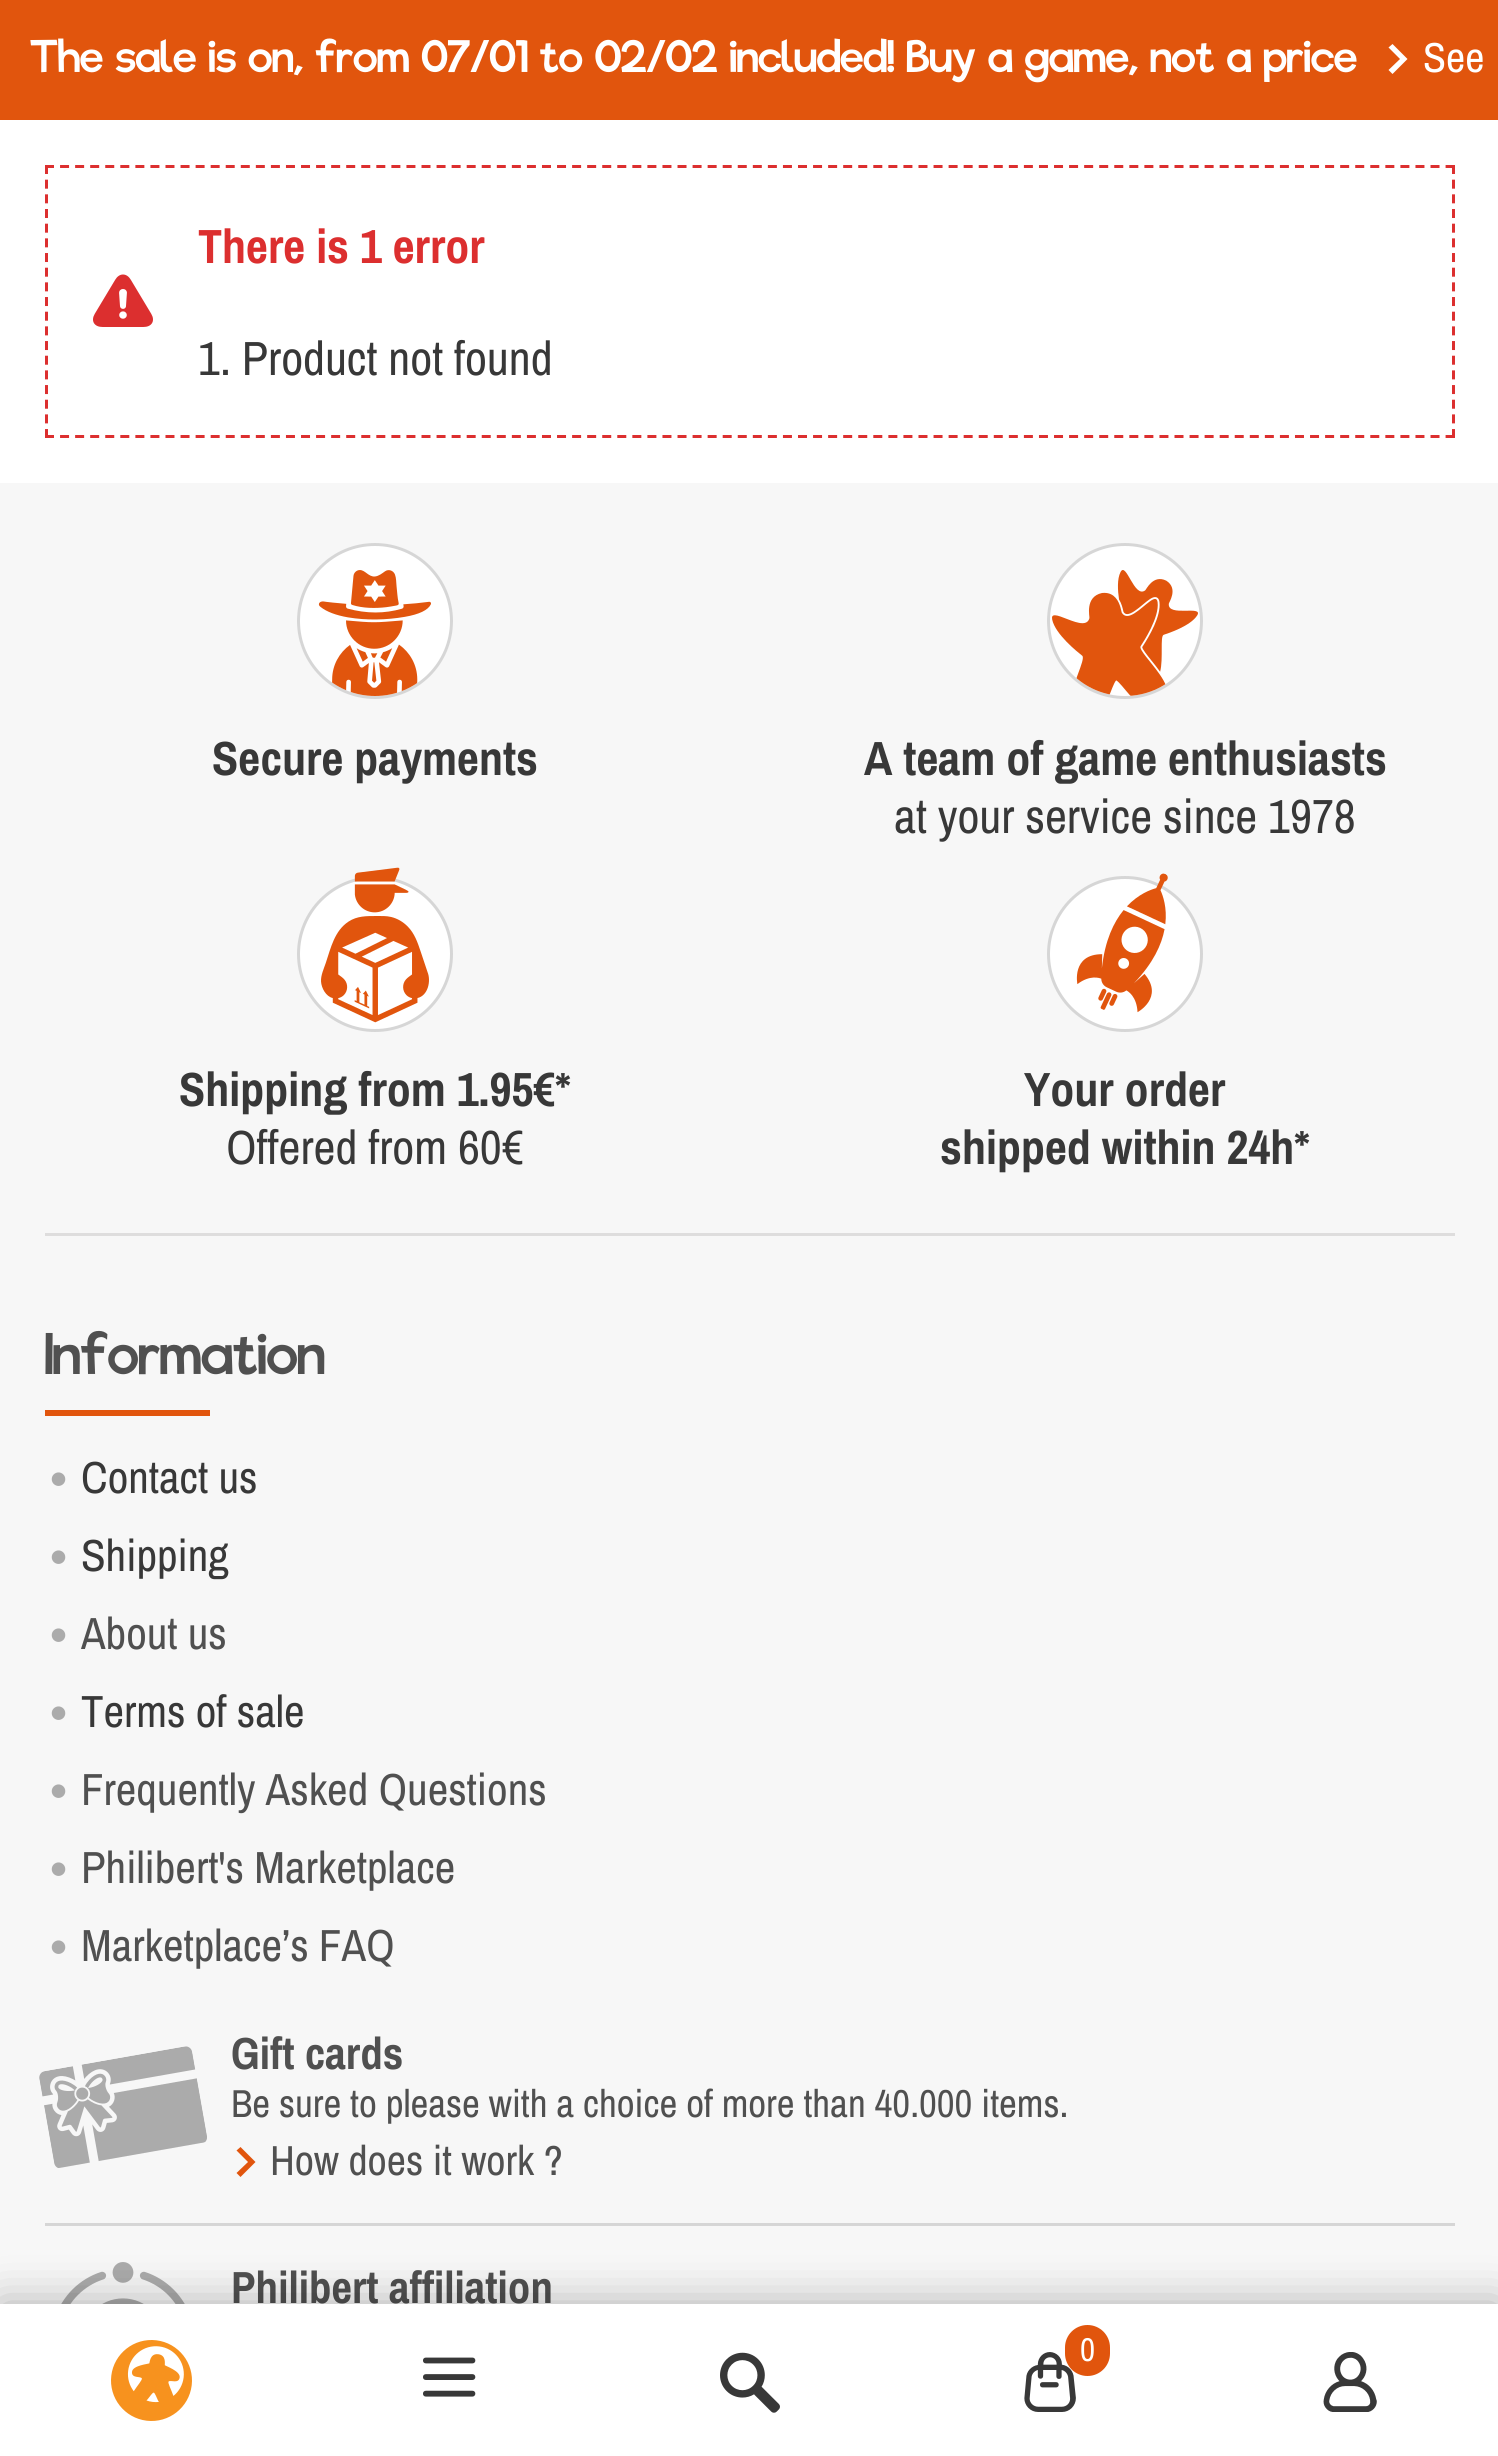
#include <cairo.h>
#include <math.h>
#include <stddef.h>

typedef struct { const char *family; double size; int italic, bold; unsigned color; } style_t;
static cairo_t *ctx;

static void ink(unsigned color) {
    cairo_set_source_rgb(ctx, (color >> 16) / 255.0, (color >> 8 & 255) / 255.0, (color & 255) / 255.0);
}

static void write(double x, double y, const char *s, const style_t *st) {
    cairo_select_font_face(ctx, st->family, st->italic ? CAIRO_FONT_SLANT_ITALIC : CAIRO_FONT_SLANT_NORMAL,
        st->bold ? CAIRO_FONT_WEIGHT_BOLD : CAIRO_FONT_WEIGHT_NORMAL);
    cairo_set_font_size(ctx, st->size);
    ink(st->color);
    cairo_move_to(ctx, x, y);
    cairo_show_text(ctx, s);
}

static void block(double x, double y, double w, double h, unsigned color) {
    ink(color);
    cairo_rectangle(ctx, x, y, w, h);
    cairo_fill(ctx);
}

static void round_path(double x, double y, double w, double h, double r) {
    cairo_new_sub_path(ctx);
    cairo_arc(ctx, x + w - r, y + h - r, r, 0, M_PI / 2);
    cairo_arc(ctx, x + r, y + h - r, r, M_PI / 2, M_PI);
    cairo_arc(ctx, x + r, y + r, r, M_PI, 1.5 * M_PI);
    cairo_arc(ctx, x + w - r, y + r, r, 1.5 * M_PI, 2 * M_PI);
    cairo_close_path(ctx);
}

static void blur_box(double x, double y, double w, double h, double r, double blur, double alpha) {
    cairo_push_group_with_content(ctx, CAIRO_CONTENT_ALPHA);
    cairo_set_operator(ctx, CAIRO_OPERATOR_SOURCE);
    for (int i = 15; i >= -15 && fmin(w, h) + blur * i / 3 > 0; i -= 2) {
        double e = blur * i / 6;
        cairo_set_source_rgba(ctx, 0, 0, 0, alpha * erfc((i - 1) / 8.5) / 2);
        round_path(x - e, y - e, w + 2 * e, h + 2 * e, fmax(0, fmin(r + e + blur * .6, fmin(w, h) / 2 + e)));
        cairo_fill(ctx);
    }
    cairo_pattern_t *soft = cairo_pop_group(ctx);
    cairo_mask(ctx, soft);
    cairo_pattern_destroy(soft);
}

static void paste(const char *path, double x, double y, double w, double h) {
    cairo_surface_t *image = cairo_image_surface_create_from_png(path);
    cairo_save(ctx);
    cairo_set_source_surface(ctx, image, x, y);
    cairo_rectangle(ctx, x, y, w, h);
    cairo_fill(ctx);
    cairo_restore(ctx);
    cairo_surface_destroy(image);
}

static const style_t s1 = {"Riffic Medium", 42, 0, 0, 0xffffff};
static const style_t s2 = {"Archivo Narrow", 42, 0, 0, 0xffffff};
static const style_t s3 = {"Archivo Narrow", 48, 0, 1, 0xdc2f2f};
static const style_t s4 = {"Archivo Narrow", 48, 0, 0, 0x383838};
static const style_t s5 = {"Archivo Narrow", 48, 0, 1, 0x383838};
static const style_t s6 = {"Riffic Medium", 54, 0, 0, 0x505050};
static const style_t s7 = {"Archivo Narrow", 45, 0, 0, 0x383838};
static const style_t s8 = {"Archivo Narrow", 45, 0, 0, 0x505050};
static const style_t s9 = {"Archivo Narrow", 45, 0, 1, 0x505050};
static const style_t s10 = {"Archivo Narrow", 39, 0, 0, 0x505050};
static const style_t s11 = {"Archivo Narrow", 42, 0, 0, 0x505050};
static const style_t s12 = {"Archivo Narrow", 33, 0, 0, 0xffffff};

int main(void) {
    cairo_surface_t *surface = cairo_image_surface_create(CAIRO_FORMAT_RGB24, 1498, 2456);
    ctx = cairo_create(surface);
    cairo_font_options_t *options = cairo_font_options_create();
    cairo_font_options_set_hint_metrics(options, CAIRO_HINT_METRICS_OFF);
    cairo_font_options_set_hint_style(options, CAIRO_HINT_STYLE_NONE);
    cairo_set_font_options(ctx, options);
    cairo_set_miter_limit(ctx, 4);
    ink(0xffffff);
    cairo_paint(ctx);
    block(0, 0, 1498, 120, 0xe1550d);
    write(30, 72, "The sale is on, from 07/01 to 02/02 included! Buy a game, not a price", &s1);
    cairo_new_path(ctx);
    cairo_move_to(ctx, 1388.5, 47.5);
    cairo_line_to(ctx, 1400, 59);
    cairo_line_to(ctx, 1388.5, 70);
    cairo_line_to(ctx, 1392.5, 74);
    cairo_line_to(ctx, 1407.5, 59);
    cairo_line_to(ctx, 1392.5, 44);
    cairo_close_path(ctx);
    cairo_fill(ctx);
    write(1423, 72, "See", &s2);
    cairo_new_path(ctx);
    cairo_move_to(ctx, 45, 166.5);
    cairo_line_to(ctx, 1455, 166.5);
    ink(0xdc2f2f);
    cairo_set_line_width(ctx, 3);
    cairo_set_dash(ctx, (double[]){9, 6.06}, 2, 0);
    cairo_stroke(ctx);
    cairo_new_path(ctx);
    cairo_move_to(ctx, 1453.5, 165);
    cairo_line_to(ctx, 1453.5, 438);
    cairo_set_dash(ctx, (double[]){9, 5.67}, 2, 0);
    cairo_stroke(ctx);
    cairo_new_path(ctx);
    cairo_move_to(ctx, 45, 436.5);
    cairo_line_to(ctx, 1455, 436.5);
    cairo_set_dash(ctx, (double[]){9, 6.06}, 2, 0);
    cairo_stroke(ctx);
    cairo_new_path(ctx);
    cairo_move_to(ctx, 46.5, 165);
    cairo_line_to(ctx, 46.5, 438);
    cairo_set_dash(ctx, (double[]){9, 5.67}, 2, 0);
    cairo_stroke(ctx);
    write(198, 263, "There is 1 error", &s3);
    paste("pic1.png", 93, 274, 60, 53);
    write(198, 375, "1. Product not found", &s4);
    block(0, 483, 1498, 1821, 0xf7f7f7);
    paste("pic2.png", 297, 543, 156, 156);
    cairo_arc(ctx, 375, 621, 76.5, 0, 2 * M_PI);
    ink(0xd6d6d6);
    cairo_set_dash(ctx, NULL, 0, 0);
    cairo_stroke(ctx);
    paste("pic3.png", 318, 570, 113, 126);
    write(212, 775, "Secure payments", &s5);
    paste("pic2.png", 1047, 543, 156, 156);
    cairo_arc(ctx, 1125, 621, 76.5, 0, 2 * M_PI);
    ink(0xd6d6d6);
    cairo_stroke(ctx);
    paste("pic4.png", 1052, 570, 146, 126);
    write(864, 775, "A team of game enthusiasts", &s5);
    write(894, 833, "at your service since 1978", &s4);
    ink(0xffffff);
    cairo_new_path(ctx);
    cairo_arc(ctx, 375, 954, 76.5, 0, 2 * M_PI);
    cairo_fill_preserve(ctx);
    ink(0xd6d6d6);
    cairo_stroke(ctx);
    paste("pic5.png", 321, 867, 108, 156);
    write(179, 1106, "Shipping from 1.95€*", &s5);
    write(226, 1164, "Offered from 60€", &s4);
    ink(0xffffff);
    cairo_new_path(ctx);
    cairo_arc(ctx, 1125, 954, 76.5, 0, 2 * M_PI);
    cairo_fill_preserve(ctx);
    ink(0xd6d6d6);
    cairo_stroke(ctx);
    paste("pic6.png", 1076, 873, 92, 140);
    write(1024, 1106, "Your order", &s5);
    write(940, 1164, "shipped within 24h*", &s5);
    block(45, 1233, 1410, 3, 0xdedddd);
    write(45, 1374, "Information", &s6);
    block(45, 1410, 165, 6, 0xe1550d);
    paste("pic7.png", 51, 1472, 15, 14);
    write(81, 1493, "Contact us", &s7);
    paste("pic7.png", 51, 1550, 15, 14);
    write(81, 1571, "Shipping", &s7);
    paste("pic7.png", 51, 1628, 15, 14);
    write(81, 1649, "About us", &s8);
    paste("pic7.png", 51, 1706, 15, 14);
    write(81, 1727, "Terms of sale", &s7);
    paste("pic7.png", 51, 1784, 15, 14);
    write(81, 1805, "Frequently Asked Questions", &s8);
    paste("pic7.png", 51, 1862, 15, 14);
    write(81, 1883, "Philibert's Marketplace", &s8);
    paste("pic7.png", 51, 1940, 15, 14);
    write(81, 1961, "Marketplace’s FAQ", &s8);
    block(45, 2223, 1410, 3, 0xd6d6d6);
    paste("pic8.png", 39, 2046, 168, 122);
    write(231, 2069, "Gift cards", &s9);
    write(231, 2117, "Be sure to please with a choice of more than 40.000 items.", &s10);
    ink(0xe1550d);
    cairo_new_path(ctx);
    cairo_move_to(ctx, 236.5, 2150.5);
    cairo_line_to(ctx, 248, 2162);
    cairo_line_to(ctx, 236.5, 2173);
    cairo_line_to(ctx, 240.5, 2177);
    cairo_line_to(ctx, 255.5, 2162);
    cairo_line_to(ctx, 240.5, 2147);
    cairo_close_path(ctx);
    cairo_fill(ctx);
    write(270, 2175, "How does it work ?", &s11);
    paste("pic9.png", 61, 2262, 124, 42);
    write(231, 2303, "Philibert affiliation", &s9);
    ink(0x000000);
    blur_box(0, 2304, 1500, 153, 0, 22.5, 0.3);
    block(0, 2304, 1498, 152, 0xffffff);
    paste("pic10.png", 111, 2340, 81, 81);
    paste("pic11.png", 423, 2357, 53, 40);
    paste("pic12.png", 720, 2352, 60, 61);
    paste("pic13.png", 1024, 2352, 52, 60);
    ink(0xe1550d);
    round_path(1065, 2325, 45, 51, 22.5);
    cairo_fill(ctx);
    write(1080, 2361, "0", &s12);
    paste("pic14.png", 1323, 2352, 54, 60);
    cairo_surface_write_to_png(surface, "screenshot.png");
    cairo_font_options_destroy(options);
    cairo_destroy(ctx);
    cairo_surface_destroy(surface);
    return 0;
}
